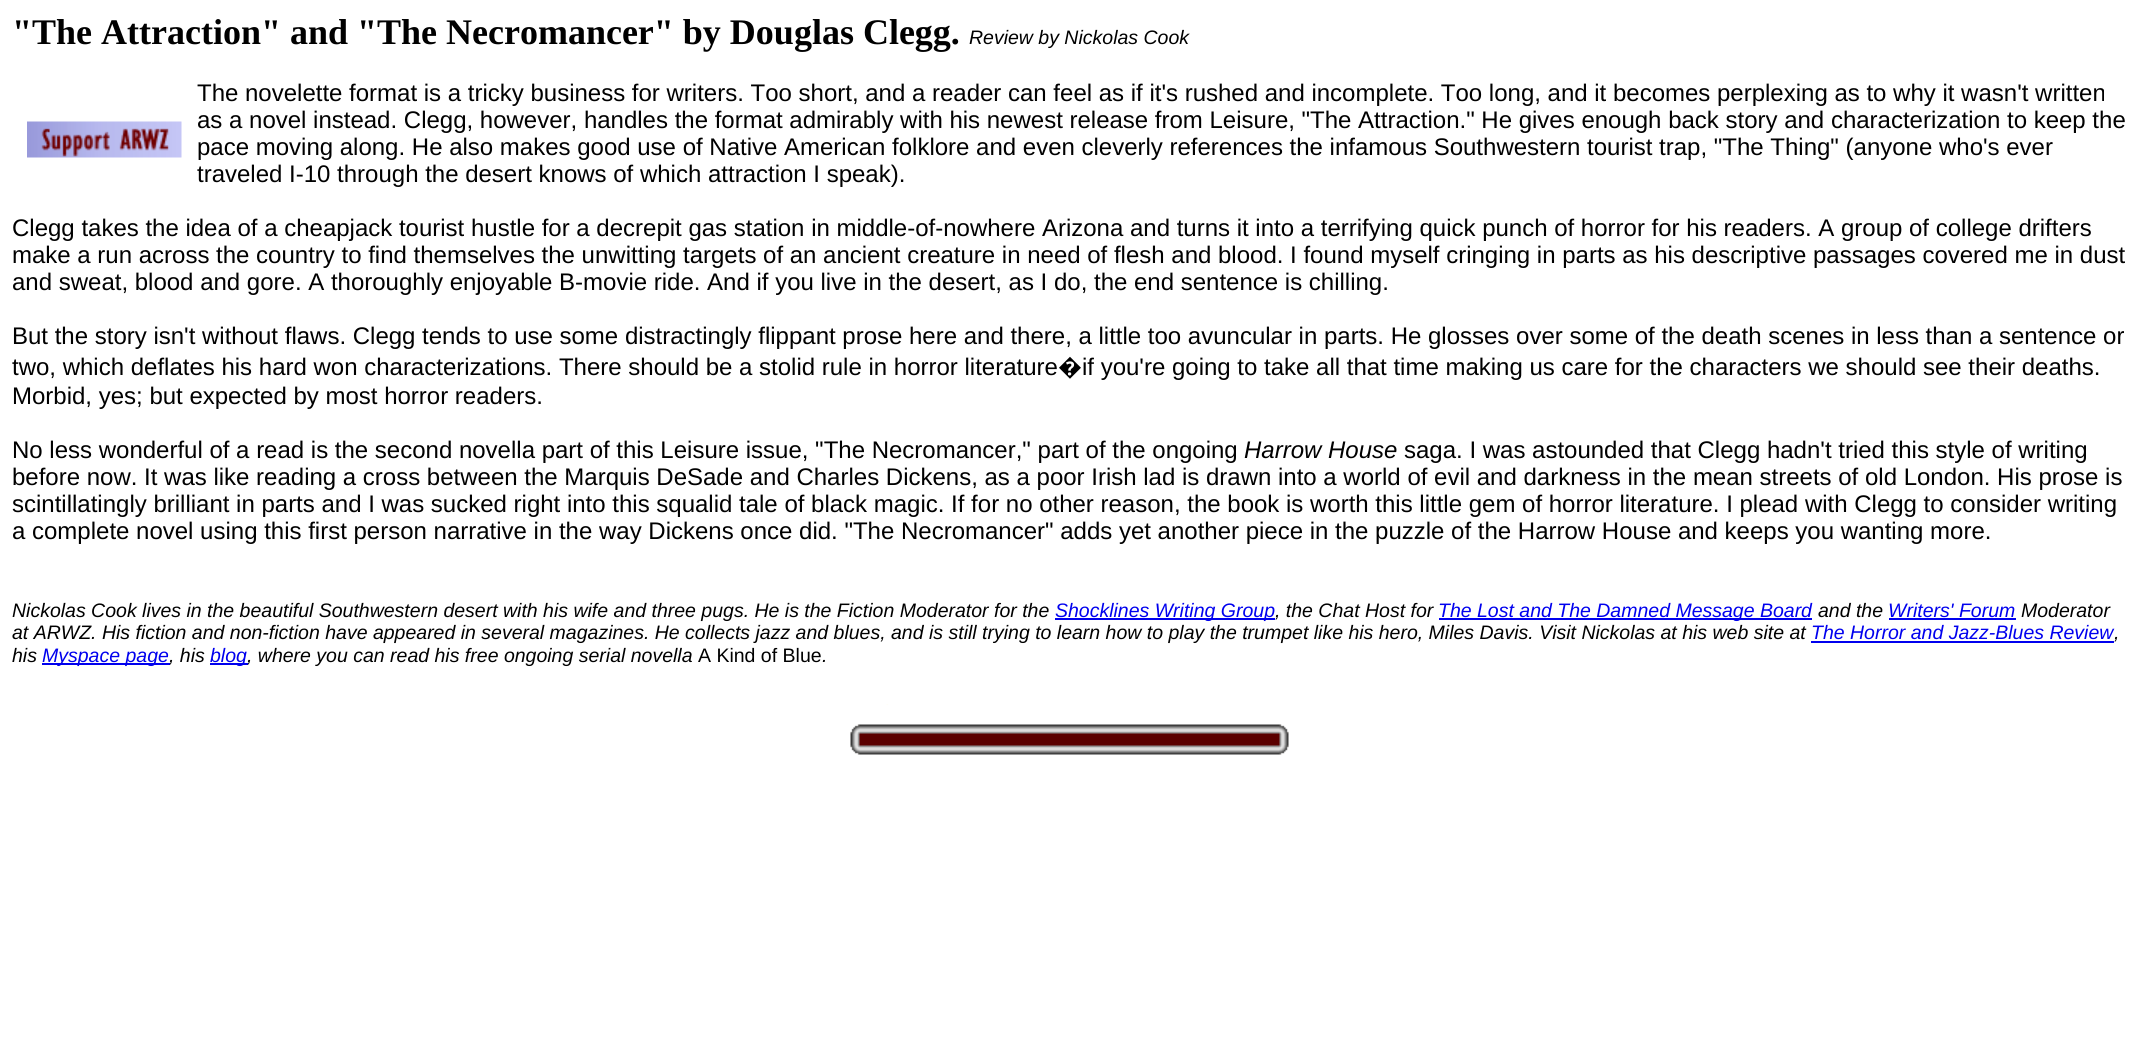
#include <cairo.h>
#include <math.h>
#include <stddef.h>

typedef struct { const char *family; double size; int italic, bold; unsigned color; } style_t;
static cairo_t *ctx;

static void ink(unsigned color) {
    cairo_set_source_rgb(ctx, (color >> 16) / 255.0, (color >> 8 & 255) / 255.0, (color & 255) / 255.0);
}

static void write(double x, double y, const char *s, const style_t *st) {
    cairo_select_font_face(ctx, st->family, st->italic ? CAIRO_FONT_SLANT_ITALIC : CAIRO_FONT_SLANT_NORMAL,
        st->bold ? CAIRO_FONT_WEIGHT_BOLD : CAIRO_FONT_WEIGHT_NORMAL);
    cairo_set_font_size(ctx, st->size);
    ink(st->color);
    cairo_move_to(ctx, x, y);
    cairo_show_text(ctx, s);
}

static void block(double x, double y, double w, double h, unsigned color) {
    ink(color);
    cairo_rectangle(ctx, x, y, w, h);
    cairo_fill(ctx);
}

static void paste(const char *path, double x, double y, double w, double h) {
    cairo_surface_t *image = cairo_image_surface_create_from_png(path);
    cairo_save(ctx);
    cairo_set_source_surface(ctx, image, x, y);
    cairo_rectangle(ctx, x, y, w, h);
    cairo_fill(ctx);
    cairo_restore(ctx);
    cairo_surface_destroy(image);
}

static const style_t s1 = {"Liberation Serif", 36, 0, 1, 0x000000};
static const style_t s2 = {"Liberation Sans", 19.5, 1, 0, 0x000000};
static const style_t s3 = {"Liberation Sans", 24, 0, 0, 0x000000};
static const style_t s4 = {"Noto Sans", 24, 0, 0, 0x000000};
static const style_t s5 = {"Liberation Sans", 24, 1, 0, 0x000000};
static const style_t s6 = {"Liberation Sans", 19.5, 1, 0, 0x0000ee};
static const style_t s7 = {"Liberation Sans", 19.5, 0, 0, 0x000000};

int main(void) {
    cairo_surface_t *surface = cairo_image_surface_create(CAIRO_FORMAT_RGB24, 2137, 1051);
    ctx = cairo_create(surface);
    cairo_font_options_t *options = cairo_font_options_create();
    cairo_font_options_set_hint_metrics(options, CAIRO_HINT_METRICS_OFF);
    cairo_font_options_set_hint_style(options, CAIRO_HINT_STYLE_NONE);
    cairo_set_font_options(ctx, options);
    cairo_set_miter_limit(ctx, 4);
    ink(0xffffff);
    cairo_paint(ctx);
    write(12, 44, "\"The Attraction\" and \"The Necromancer\" by Douglas Clegg.", &s1);
    write(969, 44, "Review by Nickolas Cook", &s2);
    write(197, 101, "The novelette format is a tricky business for writers. Too short, and a reader can feel as if it's rushed and incomplete. Too long, and it becomes perplexing as to why it wasn't written", &s3);
    paste("pic1.png", 27, 121, 155, 37);
    write(197, 128, "as a novel instead. Clegg, however, handles the format admirably with his newest release from Leisure, \"The Attraction.\" He gives enough back story and characterization to keep the", &s3);
    write(197, 155, "pace moving along. He also makes good use of Native American folklore and even cleverly references the infamous Southwestern tourist trap, \"The Thing\" (anyone who's ever", &s3);
    write(197, 182, "traveled I-10 through the desert knows of which attraction I speak).", &s3);
    write(12, 236, "Clegg takes the idea of a cheapjack tourist hustle for a decrepit gas station in middle-of-nowhere Arizona and turns it into a terrifying quick punch of horror for his readers. A group of college drifters", &s3);
    write(12, 263, "make a run across the country to find themselves the unwitting targets of an ancient creature in need of flesh and blood. I found myself cringing in parts as his descriptive passages covered me in dust", &s3);
    write(12, 290, "and sweat, blood and gore. A thoroughly enjoyable B-movie ride. And if you live in the desert, as I do, the end sentence is chilling.", &s3);
    write(12, 344, "But the story isn't without flaws. Clegg tends to use some distractingly flippant prose here and there, a little too avuncular in parts. He glosses over some of the death scenes in less than a sentence or", &s3);
    write(12, 375, "two, which deflates his hard won characterizations. There should be a stolid rule in horror literature", &s3);
    write(1058, 375, "�", &s4);
    write(1082, 375, "if you're going to take all that time making us care for the characters we should see their deaths.", &s3);
    write(12, 404, "Morbid, yes; but expected by most horror readers.", &s3);
    write(12, 458, "No less wonderful of a read is the second novella part of this Leisure issue, \"The Necromancer,\" part of the ongoing", &s3);
    write(1244, 458, "Harrow House", &s5);
    write(1404, 458, "saga. I was astounded that Clegg hadn't tried this style of writing", &s3);
    write(12, 485, "before now. It was like reading a cross between the Marquis DeSade and Charles Dickens, as a poor Irish lad is drawn into a world of evil and darkness in the mean streets of old London. His prose is", &s3);
    write(12, 512, "scintillatingly brilliant in parts and I was sucked right into this squalid tale of black magic. If for no other reason, the book is worth this little gem of horror literature. I plead with Clegg to consider writing", &s3);
    write(12, 539, "a complete novel using this first person narrative in the way Dickens once did. \"The Necromancer\" adds yet another piece in the puzzle of the Harrow House and keeps you wanting more.", &s3);
    write(12, 617, "Nickolas Cook lives in the beautiful Southwestern desert with his wife and three pugs. He is the Fiction Moderator for the", &s2);
    block(1055, 618, 220, 2, 0x0000ee);
    write(1055, 617, "Shocklines Writing Group", &s6);
    write(1275, 617, ", the Chat Host for", &s2);
    block(1439, 618, 373, 2, 0x0000ee);
    write(1438, 617, "The Lost and The Damned Message Board", &s6);
    write(1818, 617, "and the", &s2);
    write(1888, 617, "Writers' Forum", &s6);
    block(1889, 618, 127, 2, 0x0000ee);
    write(2021, 617, "Moderator", &s2);
    write(12, 639, "at ARWZ. His fiction and non-fiction have appeared in several magazines. He collects jazz and blues, and is still trying to learn how to play the trumpet like his hero, Miles Davis. Visit Nickolas at his web site at", &s2);
    write(1811, 639, "The Horror and Jazz-Blues Review", &s6);
    block(1811, 641, 303, 2, 0x0000ee);
    write(2114, 639, ",", &s2);
    write(12, 662, "his", &s2);
    block(42, 663, 128, 2, 0x0000ee);
    write(42, 662, "Myspace page", &s6);
    write(169, 662, ", his", &s2);
    block(210, 663, 38, 2, 0x0000ee);
    write(210, 662, "blog", &s6);
    write(247, 662, ", where you can read his free ongoing serial novella", &s2);
    write(698, 662, "A Kind of Blue", &s7);
    write(822, 662, ".", &s2);
    paste("pic2.png", 850, 704, 439, 51);
    cairo_surface_write_to_png(surface, "screenshot.png");
    cairo_font_options_destroy(options);
    cairo_destroy(ctx);
    cairo_surface_destroy(surface);
    return 0;
}
